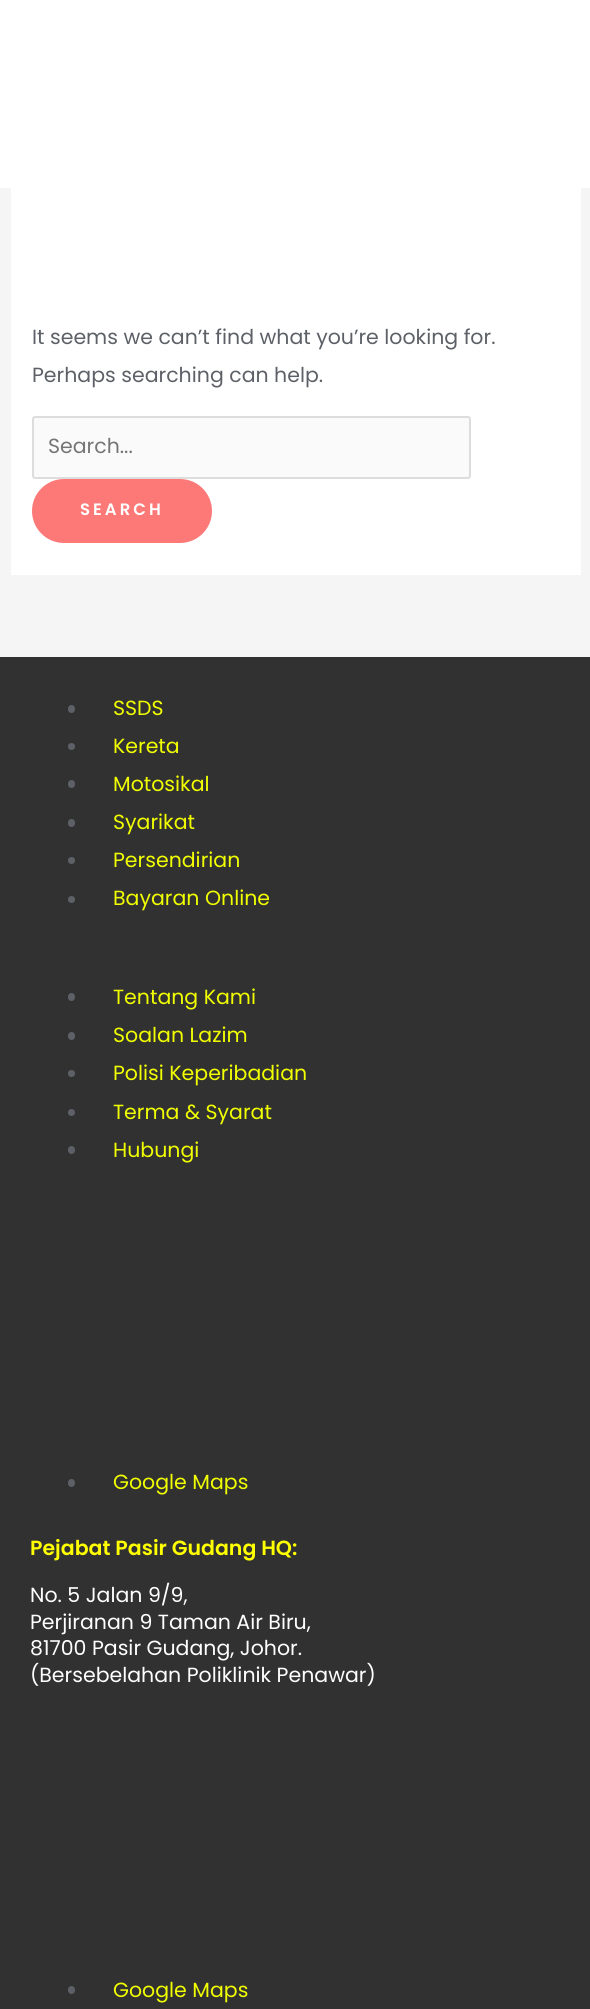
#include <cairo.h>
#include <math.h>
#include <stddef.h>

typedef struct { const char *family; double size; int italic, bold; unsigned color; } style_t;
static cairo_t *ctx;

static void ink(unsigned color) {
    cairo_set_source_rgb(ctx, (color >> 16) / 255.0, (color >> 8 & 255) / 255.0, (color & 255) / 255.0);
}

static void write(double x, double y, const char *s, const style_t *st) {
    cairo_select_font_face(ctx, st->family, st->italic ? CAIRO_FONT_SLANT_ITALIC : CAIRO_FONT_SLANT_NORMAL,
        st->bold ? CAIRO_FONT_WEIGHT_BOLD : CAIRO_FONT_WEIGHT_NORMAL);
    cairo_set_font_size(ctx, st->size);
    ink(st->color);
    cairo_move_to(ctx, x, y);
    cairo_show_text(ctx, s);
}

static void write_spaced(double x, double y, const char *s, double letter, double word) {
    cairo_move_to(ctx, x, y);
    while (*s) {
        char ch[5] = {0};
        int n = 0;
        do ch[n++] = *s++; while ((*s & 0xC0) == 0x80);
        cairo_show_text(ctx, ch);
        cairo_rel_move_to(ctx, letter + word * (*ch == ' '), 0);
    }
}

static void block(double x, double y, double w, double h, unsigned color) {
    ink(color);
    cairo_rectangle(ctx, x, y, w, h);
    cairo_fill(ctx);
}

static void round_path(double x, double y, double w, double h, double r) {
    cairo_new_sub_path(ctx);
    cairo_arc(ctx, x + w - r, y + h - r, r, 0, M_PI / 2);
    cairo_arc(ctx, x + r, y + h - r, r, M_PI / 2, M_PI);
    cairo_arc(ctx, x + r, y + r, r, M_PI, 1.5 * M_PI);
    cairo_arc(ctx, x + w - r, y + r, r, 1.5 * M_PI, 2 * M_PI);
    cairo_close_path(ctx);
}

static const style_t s1 = {"Poppins", 20.5, 0, 0, 0x5d6167};
static const style_t s2 = {"Poppins", 20.5, 0, 0, 0x757575};
static const style_t s3 = {"Poppins", 20.5, 0, 0, 0xf1ff00};
static const style_t s4 = {"Poppins SemiBold", 20.5, 0, 0, 0xffff00};
static const style_t s5 = {"Poppins", 20.5, 0, 0, 0xffffff};

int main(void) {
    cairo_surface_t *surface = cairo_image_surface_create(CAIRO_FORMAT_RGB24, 590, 2009);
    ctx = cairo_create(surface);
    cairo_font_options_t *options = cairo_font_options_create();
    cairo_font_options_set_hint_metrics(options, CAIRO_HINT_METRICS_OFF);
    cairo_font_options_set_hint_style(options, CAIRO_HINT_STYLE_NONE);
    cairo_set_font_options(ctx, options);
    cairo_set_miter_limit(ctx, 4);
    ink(0xf5f5f5);
    cairo_paint(ctx);
    block(0, 0, 590, 188, 0xffffff);
    block(11, 188, 570, 387, 0xffffff);
    write(32, 344, "It seems we can’t find what you’re looking for.", &s1);
    write(32, 382, "Perhaps searching can help.", &s1);
    ink(0xfafafa);
    round_path(33, 417, 437, 61, 2);
    cairo_fill_preserve(ctx);
    ink(0xdddddd);
    cairo_stroke(ctx);
    write(48, 453, "Search...", &s2);
    ink(0xfc7978);
    round_path(32, 479, 180, 64, 32);
    cairo_fill(ctx);
    cairo_select_font_face(ctx, "Poppins SemiBold", CAIRO_FONT_SLANT_NORMAL, CAIRO_FONT_WEIGHT_NORMAL);
    cairo_set_font_size(ctx, 16.5);
    ink(0xffffff);
    write_spaced(80, 515, "SEARCH", 3, 0);
    block(0, 657, 590, 1352, 0x313131);
    ink(0x5d6167);
    round_path(68, 705, 7, 8, 3.5);
    cairo_fill(ctx);
    write(113, 715, "SSDS", &s3);
    ink(0x5d6167);
    cairo_new_path(ctx);
    cairo_arc(ctx, 71.5, 746.5, 3.5, 0, 2 * M_PI);
    cairo_fill(ctx);
    write(113, 753, "Kereta", &s3);
    ink(0x5d6167);
    round_path(68, 780, 7, 8, 3.5);
    cairo_fill(ctx);
    write(113, 791, "Motosikal", &s3);
    ink(0x5d6167);
    round_path(68, 819, 7, 8, 3.5);
    cairo_fill(ctx);
    write(113, 829, "Syarikat", &s3);
    ink(0x5d6167);
    cairo_new_path(ctx);
    cairo_arc(ctx, 71.5, 860.5, 3.5, 0, 2 * M_PI);
    cairo_fill(ctx);
    write(113, 867, "Persendirian", &s3);
    ink(0x5d6167);
    cairo_new_path(ctx);
    cairo_arc(ctx, 71.5, 899.5, 3.5, 0, 2 * M_PI);
    cairo_fill(ctx);
    write(113, 905, "Bayaran Online", &s3);
    ink(0x5d6167);
    round_path(68, 993, 7, 8, 3.5);
    cairo_fill(ctx);
    write(113, 1004, "Tentang Kami", &s3);
    ink(0x5d6167);
    round_path(68, 1032, 7, 8, 3.5);
    cairo_fill(ctx);
    write(113, 1042, "Soalan Lazim", &s3);
    ink(0x5d6167);
    cairo_new_path(ctx);
    cairo_arc(ctx, 71.5, 1073.5, 3.5, 0, 2 * M_PI);
    cairo_fill(ctx);
    write(113, 1080, "Polisi Keperibadian", &s3);
    ink(0x5d6167);
    cairo_new_path(ctx);
    cairo_arc(ctx, 71.5, 1112.5, 3.5, 0, 2 * M_PI);
    cairo_fill(ctx);
    write(113, 1119, "Terma & Syarat", &s3);
    ink(0x5d6167);
    round_path(68, 1146, 7, 8, 3.5);
    cairo_fill(ctx);
    write(113, 1157, "Hubungi", &s3);
    ink(0x5d6167);
    round_path(68, 1479, 7, 8, 3.5);
    cairo_fill(ctx);
    write(113, 1489, "Google Maps", &s3);
    write(30, 1555, "Pejabat Pasir Gudang HQ:", &s4);
    write(30, 1602, "No. 5 Jalan 9/9,", &s5);
    write(30, 1629, "Perjiranan 9 Taman Air Biru,", &s5);
    write(30, 1655, "81700 Pasir Gudang, Johor.", &s5);
    write(30, 1682, "(Bersebelahan Poliklinik Penawar)", &s5);
    ink(0x5d6167);
    round_path(68, 1986, 7, 8, 3.5);
    cairo_fill(ctx);
    write(113, 1997, "Google Maps", &s3);
    cairo_surface_write_to_png(surface, "screenshot.png");
    cairo_font_options_destroy(options);
    cairo_destroy(ctx);
    cairo_surface_destroy(surface);
    return 0;
}
